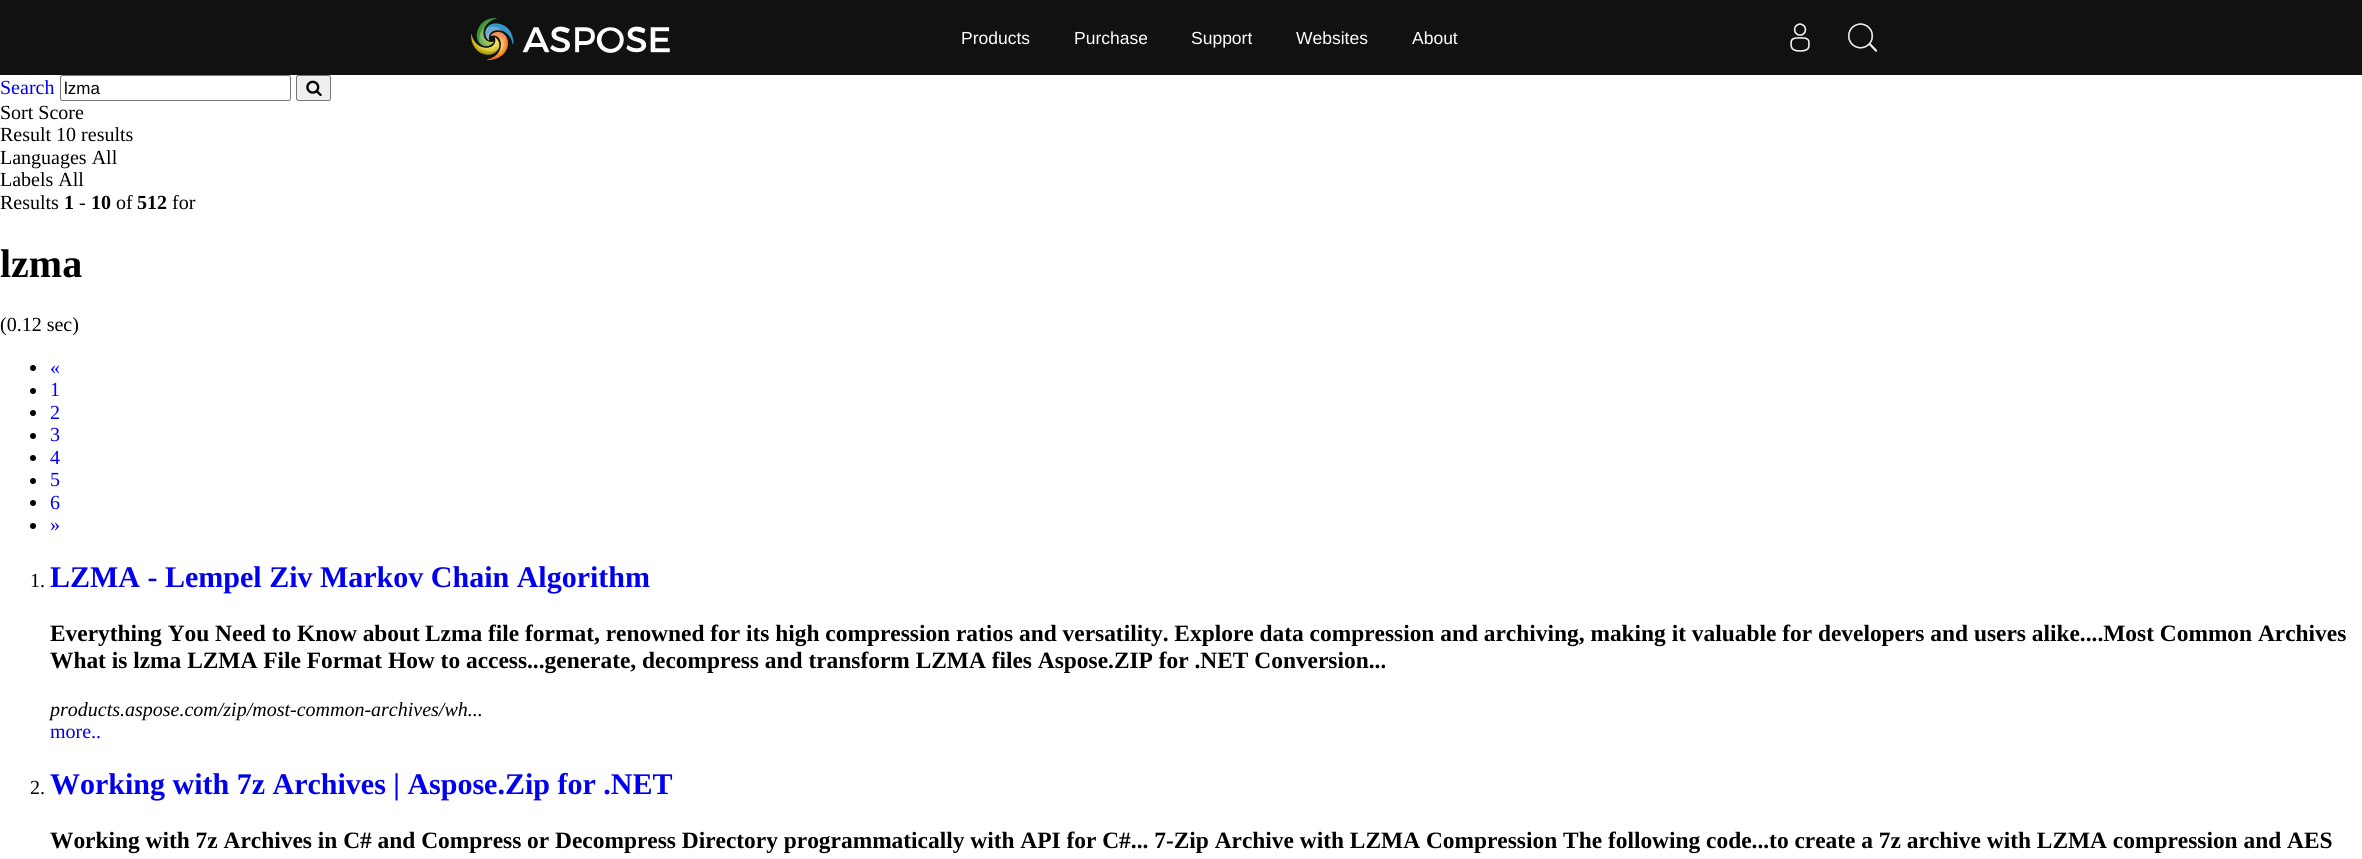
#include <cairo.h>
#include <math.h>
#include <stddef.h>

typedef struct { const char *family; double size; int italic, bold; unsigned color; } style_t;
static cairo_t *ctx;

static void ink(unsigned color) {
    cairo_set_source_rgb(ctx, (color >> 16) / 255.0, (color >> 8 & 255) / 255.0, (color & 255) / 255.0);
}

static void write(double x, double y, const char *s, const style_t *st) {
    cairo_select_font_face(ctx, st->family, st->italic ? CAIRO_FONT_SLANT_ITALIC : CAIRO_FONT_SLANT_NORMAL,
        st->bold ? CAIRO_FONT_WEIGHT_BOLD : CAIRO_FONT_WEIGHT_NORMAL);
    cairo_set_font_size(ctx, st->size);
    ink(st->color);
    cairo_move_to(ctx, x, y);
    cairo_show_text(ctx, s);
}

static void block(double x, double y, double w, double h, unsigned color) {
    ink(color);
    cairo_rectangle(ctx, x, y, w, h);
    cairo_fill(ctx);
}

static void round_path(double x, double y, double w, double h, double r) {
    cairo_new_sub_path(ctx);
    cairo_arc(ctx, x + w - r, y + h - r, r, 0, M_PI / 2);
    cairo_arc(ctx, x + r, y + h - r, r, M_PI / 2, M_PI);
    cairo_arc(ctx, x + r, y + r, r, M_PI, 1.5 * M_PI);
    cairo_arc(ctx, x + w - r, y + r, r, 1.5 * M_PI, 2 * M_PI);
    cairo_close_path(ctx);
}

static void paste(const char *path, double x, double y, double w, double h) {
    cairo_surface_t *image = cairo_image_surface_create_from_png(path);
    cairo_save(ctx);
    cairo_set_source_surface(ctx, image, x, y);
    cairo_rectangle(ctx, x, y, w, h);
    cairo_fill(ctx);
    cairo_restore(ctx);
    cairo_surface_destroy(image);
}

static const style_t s1 = {"Liberation Sans", 17.5, 0, 0, 0xffffff};
static const style_t s2 = {"Liberation Serif", 20, 0, 0, 0x0000ee};
static const style_t s3 = {"Liberation Sans", 17, 0, 0, 0x000000};
static const style_t s4 = {"Liberation Serif", 20, 0, 0, 0x000000};
static const style_t s5 = {"Liberation Serif", 20, 0, 1, 0x000000};
static const style_t s6 = {"Liberation Serif", 40, 0, 1, 0x000000};
static const style_t s7 = {"Liberation Serif", 30, 0, 1, 0x0000ee};
static const style_t s8 = {"Liberation Serif", 23.4, 0, 1, 0x000000};
static const style_t s9 = {"Liberation Serif", 20, 1, 0, 0x000000};

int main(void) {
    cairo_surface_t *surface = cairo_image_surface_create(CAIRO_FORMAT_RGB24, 2362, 859);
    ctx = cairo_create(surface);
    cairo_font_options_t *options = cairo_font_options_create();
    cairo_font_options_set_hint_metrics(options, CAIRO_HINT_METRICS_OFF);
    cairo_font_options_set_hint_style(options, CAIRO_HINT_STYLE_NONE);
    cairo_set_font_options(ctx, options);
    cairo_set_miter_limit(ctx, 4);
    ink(0xffffff);
    cairo_paint(ctx);
    block(0, 0, 2362, 75, 0x111111);
    paste("pic1.png", 471, 18, 199, 43);
    write(961, 44, "Products", &s1);
    write(1074, 44, "Purchase", &s1);
    write(1191, 44, "Support", &s1);
    write(1296, 44, "Websites", &s1);
    write(1412, 44, "About", &s1);
    paste("pic2.png", 1790, 23, 20, 29);
    paste("pic3.png", 1848, 23, 30, 29);
    write(0, 94, "Search", &s2);
    round_path(60.5, 75.5, 230, 25, 2);
    ink(0x767676);
    cairo_set_line_width(ctx, 1);
    cairo_stroke(ctx);
    write(64, 94, "lzma", &s3);
    ink(0xefefef);
    round_path(296.5, 75.5, 34, 25, 2);
    cairo_fill_preserve(ctx);
    ink(0x767676);
    cairo_stroke(ctx);
    paste("pic4.png", 306, 80, 16, 17);
    write(0, 119, "Sort Score", &s4);
    write(0, 141, "Result 10 results", &s4);
    write(0, 164, "Languages All", &s4);
    write(0, 186, "Labels All", &s4);
    write(0, 209, "Results", &s4);
    write(64, 209, "1", &s5);
    write(79, 209, "-", &s4);
    write(91, 209, "10", &s5);
    write(116, 209, "of", &s4);
    write(137, 209, "512", &s5);
    write(172, 209, "for", &s4);
    write(0, 277, "lzma", &s6);
    write(0, 331, "(0.12 sec)", &s4);
    cairo_new_path(ctx);
    cairo_arc(ctx, 33, 368, 3, 0, 2 * M_PI);
    cairo_fill(ctx);
    write(50, 374, "«", &s2);
    ink(0x000000);
    cairo_new_path(ctx);
    cairo_arc(ctx, 33, 391, 3, 0, 2 * M_PI);
    cairo_fill(ctx);
    write(50, 396, "1", &s2);
    ink(0x000000);
    cairo_new_path(ctx);
    cairo_arc(ctx, 33, 413, 3, 0, 2 * M_PI);
    cairo_fill(ctx);
    write(50, 419, "2", &s2);
    ink(0x000000);
    cairo_new_path(ctx);
    cairo_arc(ctx, 33, 436, 3, 0, 2 * M_PI);
    cairo_fill(ctx);
    write(50, 441, "3", &s2);
    ink(0x000000);
    cairo_new_path(ctx);
    cairo_arc(ctx, 33, 458, 3, 0, 2 * M_PI);
    cairo_fill(ctx);
    write(50, 464, "4", &s2);
    ink(0x000000);
    cairo_new_path(ctx);
    cairo_arc(ctx, 33, 481, 3, 0, 2 * M_PI);
    cairo_fill(ctx);
    write(50, 486, "5", &s2);
    ink(0x000000);
    cairo_new_path(ctx);
    cairo_arc(ctx, 33, 503, 3, 0, 2 * M_PI);
    cairo_fill(ctx);
    write(50, 509, "6", &s2);
    ink(0x000000);
    cairo_new_path(ctx);
    cairo_arc(ctx, 33, 526, 3, 0, 2 * M_PI);
    cairo_fill(ctx);
    write(50, 531, "»", &s2);
    write(30, 587, "1.", &s4);
    write(50, 587, "LZMA - Lempel Ziv Markov Chain Algorithm", &s7);
    write(50, 641, "Everything You Need to Know about", &s8);
    write(425, 641, "Lzma file format, renowned for its high compression ratios and versatility. Explore data compression and archiving, making it valuable for developers and users alike....Most Common Archives", &s8);
    write(50, 668, "What is lzma LZMA File Format How to access...generate, decompress and transform LZMA files Aspose.ZIP for .NET Conversion...", &s8);
    write(50, 716, "products.aspose.com/zip/most-common-archives/wh...", &s9);
    write(50, 738, "more..", &s2);
    write(30, 794, "2.", &s4);
    write(50, 794, "Working with 7z Archives | Aspose.Zip for .NET", &s7);
    write(50, 848, "Working with 7z Archives in C# and Compress or Decompress Directory programmatically with API for C#... 7-Zip Archive with LZMA Compression The following code...to create a 7z archive with LZMA compression and AES", &s8);
    cairo_surface_write_to_png(surface, "screenshot.png");
    cairo_font_options_destroy(options);
    cairo_destroy(ctx);
    cairo_surface_destroy(surface);
    return 0;
}
